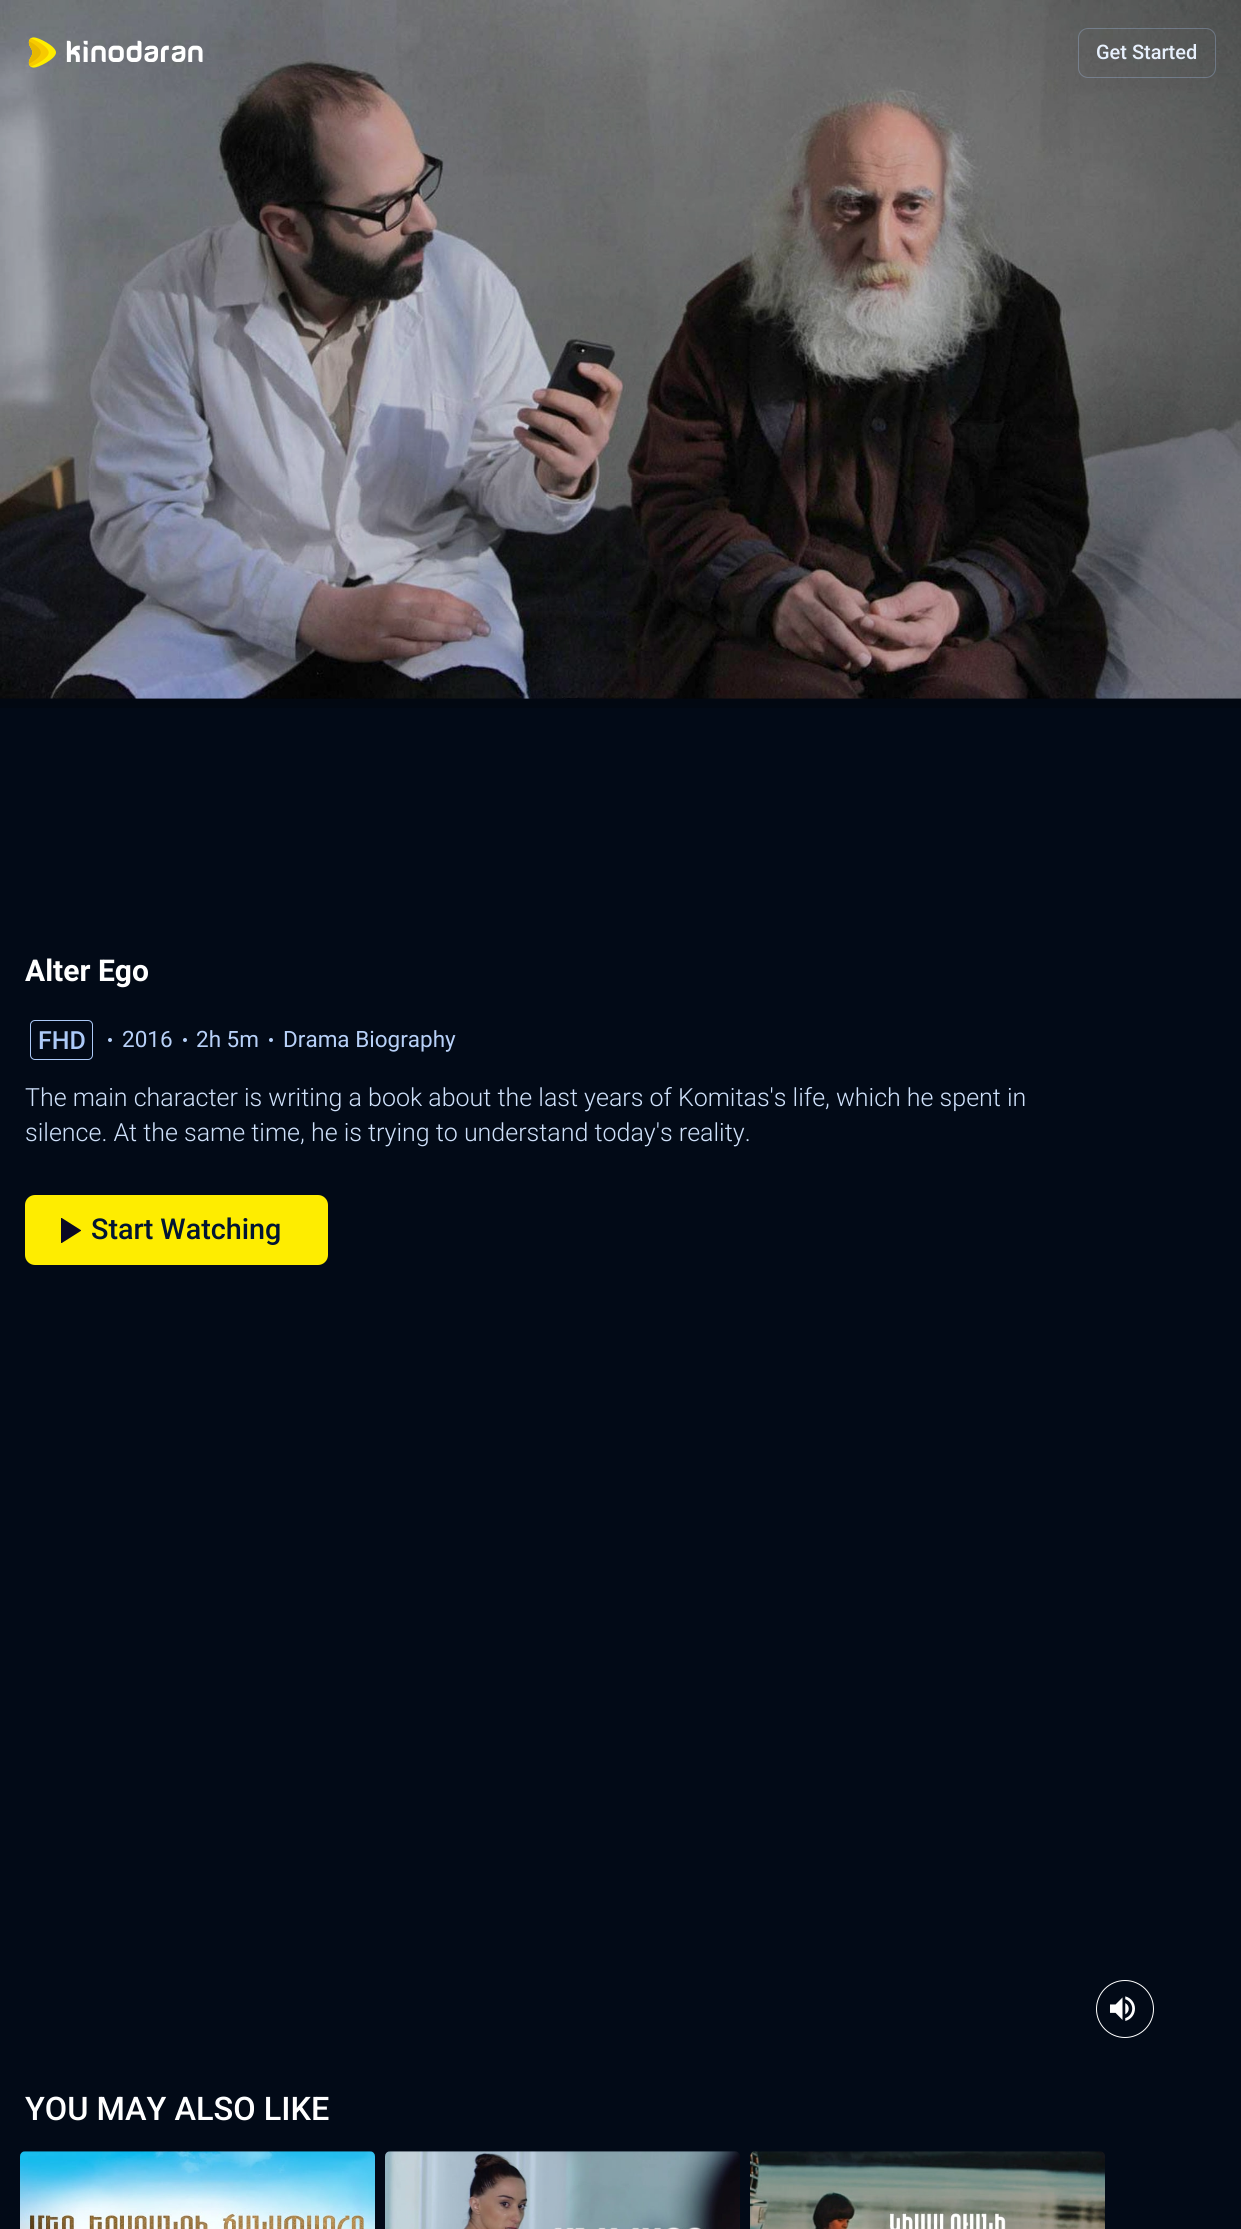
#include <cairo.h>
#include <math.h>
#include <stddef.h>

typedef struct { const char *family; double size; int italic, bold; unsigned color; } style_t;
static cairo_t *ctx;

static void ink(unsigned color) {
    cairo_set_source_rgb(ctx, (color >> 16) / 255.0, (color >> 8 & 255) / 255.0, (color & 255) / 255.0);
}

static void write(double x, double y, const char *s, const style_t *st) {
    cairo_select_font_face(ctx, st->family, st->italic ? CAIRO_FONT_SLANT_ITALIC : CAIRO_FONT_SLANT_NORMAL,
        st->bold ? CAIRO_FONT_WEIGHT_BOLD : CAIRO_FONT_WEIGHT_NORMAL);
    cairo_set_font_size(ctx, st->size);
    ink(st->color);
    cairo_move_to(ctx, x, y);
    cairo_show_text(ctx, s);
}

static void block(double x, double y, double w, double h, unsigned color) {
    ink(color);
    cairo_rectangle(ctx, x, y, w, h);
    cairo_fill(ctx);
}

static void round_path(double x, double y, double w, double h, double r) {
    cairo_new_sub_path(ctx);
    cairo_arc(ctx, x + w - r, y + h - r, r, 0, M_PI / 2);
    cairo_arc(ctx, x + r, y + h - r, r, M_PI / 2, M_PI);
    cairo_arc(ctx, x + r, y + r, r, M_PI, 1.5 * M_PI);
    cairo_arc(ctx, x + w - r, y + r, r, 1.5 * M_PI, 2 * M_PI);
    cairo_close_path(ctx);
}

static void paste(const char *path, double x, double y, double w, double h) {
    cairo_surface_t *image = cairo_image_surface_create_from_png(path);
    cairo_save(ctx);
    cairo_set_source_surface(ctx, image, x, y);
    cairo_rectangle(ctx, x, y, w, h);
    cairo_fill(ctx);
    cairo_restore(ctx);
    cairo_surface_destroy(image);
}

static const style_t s1 = {"Roboto Medium", 20, 0, 0, 0xe7f0fd};
static const style_t s2 = {"Roboto", 30, 0, 1, 0xffffff};
static const style_t s3 = {"Roboto Medium", 25, 0, 0, 0xaccaf8};
static const style_t s4 = {"Roboto", 22.5, 0, 0, 0xb8d1f9};
static const style_t s5 = {"Roboto Light", 25, 0, 0, 0xcfe1fb};
static const style_t s6 = {"Roboto Medium", 28.75, 0, 0, 0x011533};
static const style_t s7 = {"Roboto Medium", 32.5, 0, 0, 0xffffff};

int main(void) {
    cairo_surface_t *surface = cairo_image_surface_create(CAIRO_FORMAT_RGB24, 1241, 2229);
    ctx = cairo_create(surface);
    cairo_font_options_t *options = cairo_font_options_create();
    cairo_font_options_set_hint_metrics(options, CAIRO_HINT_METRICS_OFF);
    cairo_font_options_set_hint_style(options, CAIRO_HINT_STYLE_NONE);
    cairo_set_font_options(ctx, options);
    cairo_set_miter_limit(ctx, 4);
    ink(0x020a17);
    cairo_paint(ctx);
    block(0, 698, 1241, 10, 0x020812);
    paste("pic2.png", 0, 0, 1241, 699);
    paste("pic1.png", 28, 37, 175, 31);
    round_path(1078.5, 28.5, 137, 49, 9.5);
    cairo_set_source_rgba(ctx, 0.675, 0.792, 0.973, 0.3);
    cairo_set_line_width(ctx, 1);
    cairo_stroke(ctx);
    write(1096, 59, "Get Started", &s1);
    cairo_new_path(ctx);
    cairo_arc(ctx, 1125, 2009, 28.5, 0, 2 * M_PI);
    ink(0xffffff);
    cairo_stroke(ctx);
    paste("pic3.png", 1110, 1996, 25, 25);
    write(25, 981, "Alter Ego", &s2);
    round_path(30.5, 1020.5, 62, 39, 4.5);
    ink(0xaccaf8);
    cairo_stroke(ctx);
    write(38, 1049, "FHD", &s3);
    ink(0xb8d1f9);
    cairo_new_path(ctx);
    cairo_arc(ctx, 110, 1040, 2, 0, 2 * M_PI);
    cairo_fill(ctx);
    write(122, 1047, "2016", &s4);
    cairo_new_path(ctx);
    cairo_arc(ctx, 185, 1040, 2, 0, 2 * M_PI);
    cairo_fill(ctx);
    write(196, 1047, "2h 5m", &s4);
    cairo_new_path(ctx);
    cairo_arc(ctx, 271, 1040, 2, 0, 2 * M_PI);
    cairo_fill(ctx);
    write(283, 1047, "Drama Biography", &s4);
    write(25, 1106, "The main character is writing a book about the last years of Komitas's life, which he spent in", &s5);
    write(25, 1141, "silence. At the same time, he is trying to understand today's reality.", &s5);
    ink(0xfeed00);
    round_path(25, 1195, 303, 70, 10);
    cairo_fill(ctx);
    cairo_save(ctx);
    cairo_rectangle(ctx, 61, 1218, 20, 25);
    cairo_clip(ctx);
    ink(0x0a0824);
    cairo_set_fill_rule(ctx, CAIRO_FILL_RULE_EVEN_ODD);
    cairo_new_path(ctx);
    cairo_move_to(ctx, 61, 1243.5);
    cairo_line_to(ctx, 61, 1217.5);
    cairo_line_to(ctx, 81.5, 1230.5);
    cairo_close_path(ctx);
    cairo_fill(ctx);
    cairo_restore(ctx);
    write(91, 1239, "Start Watching", &s6);
    write(25, 2120, "YOU MAY ALSO LIKE", &s7);
    paste("pic4.png", 20, 2151, 355, 78);
    paste("pic5.png", 385, 2151, 355, 78);
    paste("pic6.png", 750, 2151, 355, 78);
    cairo_surface_write_to_png(surface, "screenshot.png");
    cairo_font_options_destroy(options);
    cairo_destroy(ctx);
    cairo_surface_destroy(surface);
    return 0;
}
